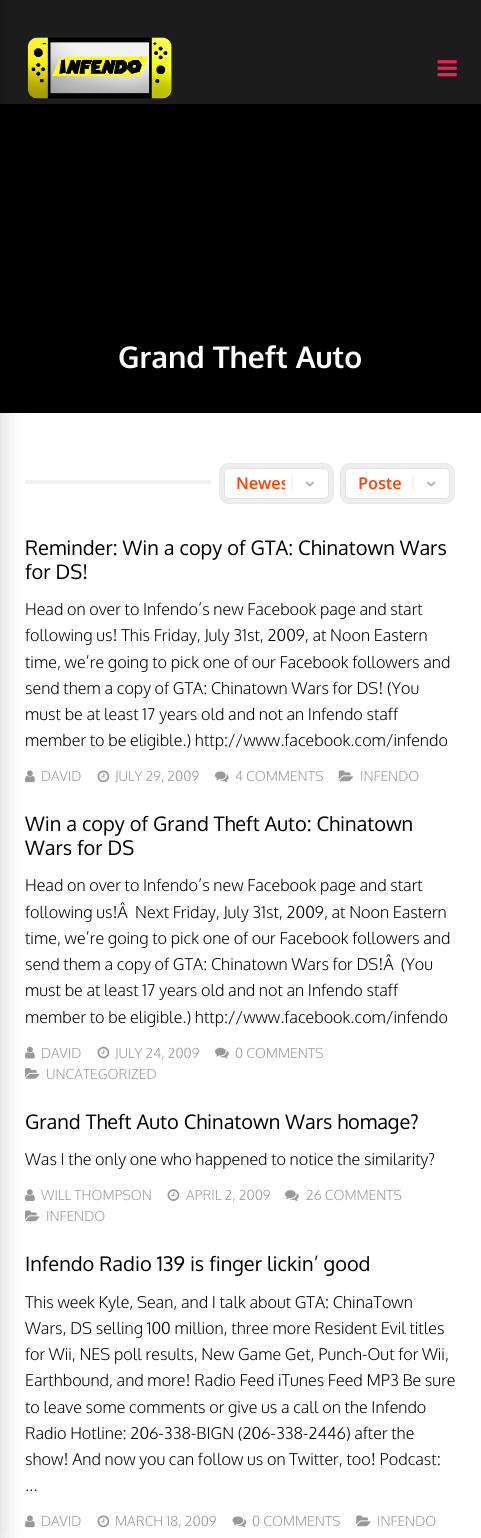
#include <cairo.h>
#include <math.h>
#include <stddef.h>

typedef struct { const char *family; double size; int italic, bold; unsigned color; } style_t;
static cairo_t *ctx;

static void ink(unsigned color) {
    cairo_set_source_rgb(ctx, (color >> 16) / 255.0, (color >> 8 & 255) / 255.0, (color & 255) / 255.0);
}

static void write(double x, double y, const char *s, const style_t *st) {
    cairo_select_font_face(ctx, st->family, st->italic ? CAIRO_FONT_SLANT_ITALIC : CAIRO_FONT_SLANT_NORMAL,
        st->bold ? CAIRO_FONT_WEIGHT_BOLD : CAIRO_FONT_WEIGHT_NORMAL);
    cairo_set_font_size(ctx, st->size);
    ink(st->color);
    cairo_move_to(ctx, x, y);
    cairo_show_text(ctx, s);
}

static void block(double x, double y, double w, double h, unsigned color) {
    ink(color);
    cairo_rectangle(ctx, x, y, w, h);
    cairo_fill(ctx);
}

static void round_path(double x, double y, double w, double h, double r) {
    cairo_new_sub_path(ctx);
    cairo_arc(ctx, x + w - r, y + h - r, r, 0, M_PI / 2);
    cairo_arc(ctx, x + r, y + h - r, r, M_PI / 2, M_PI);
    cairo_arc(ctx, x + r, y + r, r, M_PI, 1.5 * M_PI);
    cairo_arc(ctx, x + w - r, y + r, r, 1.5 * M_PI, 2 * M_PI);
    cairo_close_path(ctx);
}

static void blur_box(double x, double y, double w, double h, double r, double blur, double alpha) {
    cairo_push_group_with_content(ctx, CAIRO_CONTENT_ALPHA);
    cairo_set_operator(ctx, CAIRO_OPERATOR_SOURCE);
    for (int i = 15; i >= -15 && fmin(w, h) + blur * i / 3 > 0; i -= 2) {
        double e = blur * i / 6;
        cairo_set_source_rgba(ctx, 0, 0, 0, alpha * erfc((i - 1) / 8.5) / 2);
        round_path(x - e, y - e, w + 2 * e, h + 2 * e, fmax(0, fmin(r + e + blur * .6, fmin(w, h) / 2 + e)));
        cairo_fill(ctx);
    }
    cairo_pattern_t *soft = cairo_pop_group(ctx);
    cairo_mask(ctx, soft);
    cairo_pattern_destroy(soft);
}

static void paste(const char *path, double x, double y, double w, double h) {
    cairo_surface_t *image = cairo_image_surface_create_from_png(path);
    cairo_save(ctx);
    cairo_set_source_surface(ctx, image, x, y);
    cairo_rectangle(ctx, x, y, w, h);
    cairo_fill(ctx);
    cairo_restore(ctx);
    cairo_surface_destroy(image);
}

static const style_t s1 = {"Oxygen", 30, 0, 1, 0xffffff};
static const style_t s2 = {"Open Sans SemiBold", 16.25, 0, 0, 0xf84103};
static const style_t s3 = {"Oxygen", 20, 0, 0, 0x000000};
static const style_t s4 = {"Oxygen Light", 16.25, 0, 0, 0x000000};
static const style_t s5 = {"Oxygen Light", 13.75, 0, 0, 0x999999};

int main(void) {
    cairo_surface_t *surface = cairo_image_surface_create(CAIRO_FORMAT_RGB24, 481, 1538);
    ctx = cairo_create(surface);
    cairo_font_options_t *options = cairo_font_options_create();
    cairo_font_options_set_hint_metrics(options, CAIRO_HINT_METRICS_OFF);
    cairo_font_options_set_hint_style(options, CAIRO_HINT_STYLE_NONE);
    cairo_set_font_options(ctx, options);
    cairo_set_miter_limit(ctx, 4);
    ink(0xffffff);
    cairo_paint(ctx);
    block(0, 0, 481, 104, 0x1c1c1c);
    paste("pic1.png", 27, 37, 145, 62);
    block(0, 104, 481, 309, 0x000000);
    block(25, 480, 186, 4, 0xf1f1f1);
    paste("pic5.png", 25, 770, 10, 13);
    paste("pic9.png", 25, 1046, 10, 13);
    paste("pic12.png", 25, 1067, 15, 12);
    paste("pic13.png", 25, 1189, 10, 12);
    paste("pic16.png", 25, 1210, 15, 12);
    paste("pic5.png", 25, 1515, 10, 13);
    ink(0x000000);
    blur_box(-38, 0, 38, 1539, 0, 12.5, 0.2);
    paste("pic2.png", 437, 60, 20, 17);
    write(118, 368, "Grand Theft Auto", &s1);
    round_path(221.5, 465.5, 110, 36, 7.5);
    ink(0xe8e8e8);
    cairo_set_line_width(ctx, 5);
    cairo_stroke(ctx);
    round_path(222, 466, 109, 35, 7);
    cairo_set_source_rgba(ctx, 1, 1, 1, 0.25);
    cairo_set_line_width(ctx, 4);
    cairo_stroke(ctx);
    ink(0xffffff);
    round_path(224, 468, 105, 31, 5);
    cairo_fill(ctx);
    paste("pic3.png", 291, 475, 23, 16);
    round_path(224.5, 468.5, 104, 30, 4.5);
    cairo_set_source_rgba(ctx, 0, 0, 0, 0.12);
    cairo_set_line_width(ctx, 1);
    cairo_stroke(ctx);
    cairo_save(ctx);
    cairo_rectangle(ctx, 236, 474, 49, 19);
    cairo_clip(ctx);
    write(236, 489, "Newes", &s2);
    cairo_restore(ctx);
    round_path(342.5, 465.5, 110, 36, 7.5);
    ink(0xe8e8e8);
    cairo_set_line_width(ctx, 5);
    cairo_stroke(ctx);
    round_path(343, 466, 109, 35, 7);
    cairo_set_source_rgba(ctx, 1, 1, 1, 0.25);
    cairo_set_line_width(ctx, 4);
    cairo_stroke(ctx);
    ink(0xffffff);
    round_path(345, 468, 105, 31, 5);
    cairo_fill(ctx);
    paste("pic4.png", 412, 475, 24, 16);
    round_path(345.5, 468.5, 104, 30, 4.5);
    cairo_set_source_rgba(ctx, 0, 0, 0, 0.12);
    cairo_set_line_width(ctx, 1);
    cairo_stroke(ctx);
    write(358, 489, "Poste", &s2);
    write(25, 555, "Reminder: Win a copy of GTA: Chinatown Wars", &s3);
    write(25, 579, "for DS!", &s3);
    write(25, 615, "Head on over to Infendo’s new Facebook page and start", &s4);
    write(25, 641, "following us! This Friday, July 31st, 2009, at Noon Eastern", &s4);
    write(25, 668, "time, we’re going to pick one of our Facebook followers and", &s4);
    write(25, 694, "send them a copy of GTA: Chinatown Wars for DS! (You", &s4);
    write(25, 720, "must be at least 17 years old and not an Infendo staff", &s4);
    write(25, 746, "member to be eligible.) http://www.facebook.com/infendo", &s4);
    write(41, 781, "DAVID", &s5);
    paste("pic6.png", 97, 770, 13, 13);
    write(115, 781, "JULY 29, 2009", &s5);
    paste("pic7.png", 215, 771, 14, 12);
    write(235, 781, "4 COMMENTS", &s5);
    paste("pic8.png", 338, 770, 16, 12);
    write(360, 781, "INFENDO", &s5);
    write(25, 831, "Win a copy of Grand Theft Auto: Chinatown", &s3);
    write(25, 855, "Wars for DS", &s3);
    write(25, 891, "Head on over to Infendo’s new Facebook page and start", &s4);
    write(25, 918, "following us!Â  Next Friday, July 31st, 2009, at Noon Eastern", &s4);
    write(25, 944, "time, we’re going to pick one of our Facebook followers and", &s4);
    write(25, 970, "send them a copy of GTA: Chinatown Wars for DS!Â  (You", &s4);
    write(25, 996, "must be at least 17 years old and not an Infendo staff", &s4);
    write(25, 1023, "member to be eligible.) http://www.facebook.com/infendo", &s4);
    write(41, 1058, "DAVID", &s5);
    paste("pic10.png", 97, 1046, 13, 13);
    write(115, 1058, "JULY 24, 2009", &s5);
    paste("pic11.png", 215, 1047, 14, 12);
    write(235, 1058, "0 COMMENTS", &s5);
    write(46, 1079, "UNCATEGORIZED", &s5);
    write(25, 1129, "Grand Theft Auto Chinatown Wars homage?", &s3);
    write(25, 1165, "Was I the only one who happened to notice the similarity?", &s4);
    write(41, 1200, "WILL THOMPSON", &s5);
    paste("pic14.png", 167, 1189, 13, 12);
    write(186, 1200, "APRIL 2, 2009", &s5);
    paste("pic15.png", 285, 1190, 14, 11);
    write(306, 1200, "26 COMMENTS", &s5);
    write(46, 1221, "INFENDO", &s5);
    write(25, 1271, "Infendo Radio 139 is finger lickin’ good", &s3);
    write(25, 1308, "This week Kyle, Sean, and I talk about GTA: ChinaTown", &s4);
    write(25, 1334, "Wars, DS selling 100 million, three more Resident Evil titles", &s4);
    write(25, 1360, "for Wii, NES poll results, New Game Get, Punch-Out for Wii,", &s4);
    write(25, 1386, "Earthbound, and more! Radio Feed iTunes Feed MP3 Be sure", &s4);
    write(25, 1413, "to leave some comments or give us a call on the Infendo", &s4);
    write(25, 1439, "Radio Hotline: 206-338-BIGN (206-338-2446) after the", &s4);
    write(25, 1465, "show! And now you can follow us on Twitter, too! Podcast:", &s4);
    write(25, 1491, "...", &s4);
    write(41, 1526, "DAVID", &s5);
    paste("pic6.png", 97, 1515, 13, 13);
    write(115, 1526, "MARCH 18, 2009", &s5);
    paste("pic17.png", 232, 1516, 15, 12);
    write(252, 1526, "0 COMMENTS", &s5);
    paste("pic18.png", 356, 1515, 15, 12);
    write(377, 1526, "INFENDO", &s5);
    cairo_surface_write_to_png(surface, "screenshot.png");
    cairo_font_options_destroy(options);
    cairo_destroy(ctx);
    cairo_surface_destroy(surface);
    return 0;
}
